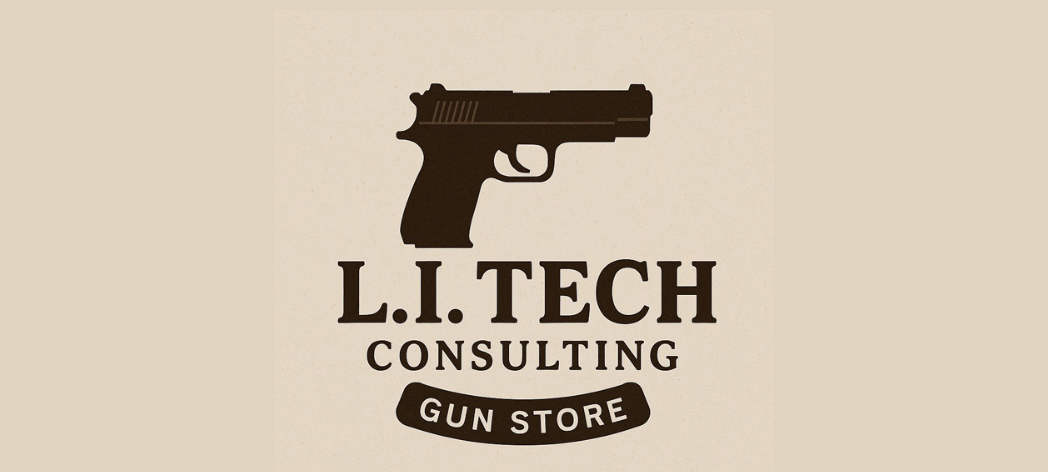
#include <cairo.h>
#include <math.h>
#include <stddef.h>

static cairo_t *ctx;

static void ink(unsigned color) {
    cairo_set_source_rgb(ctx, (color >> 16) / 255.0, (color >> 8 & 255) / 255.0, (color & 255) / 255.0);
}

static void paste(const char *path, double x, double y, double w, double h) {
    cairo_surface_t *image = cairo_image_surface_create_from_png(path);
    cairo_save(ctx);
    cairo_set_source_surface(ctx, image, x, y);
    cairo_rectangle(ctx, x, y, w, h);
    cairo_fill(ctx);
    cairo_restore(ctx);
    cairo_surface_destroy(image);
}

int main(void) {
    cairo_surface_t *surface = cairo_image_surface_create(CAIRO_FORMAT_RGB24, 1048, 472);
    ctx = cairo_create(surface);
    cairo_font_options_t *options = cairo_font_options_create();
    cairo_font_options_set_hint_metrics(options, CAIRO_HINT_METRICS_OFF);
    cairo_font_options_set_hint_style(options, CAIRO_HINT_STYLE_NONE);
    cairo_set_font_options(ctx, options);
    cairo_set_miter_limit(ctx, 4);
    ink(0xe0d3c0);
    cairo_paint(ctx);
    paste("pic1.png", 274, 10, 500, 462);
    cairo_surface_write_to_png(surface, "screenshot.png");
    cairo_font_options_destroy(options);
    cairo_destroy(ctx);
    cairo_surface_destroy(surface);
    return 0;
}
